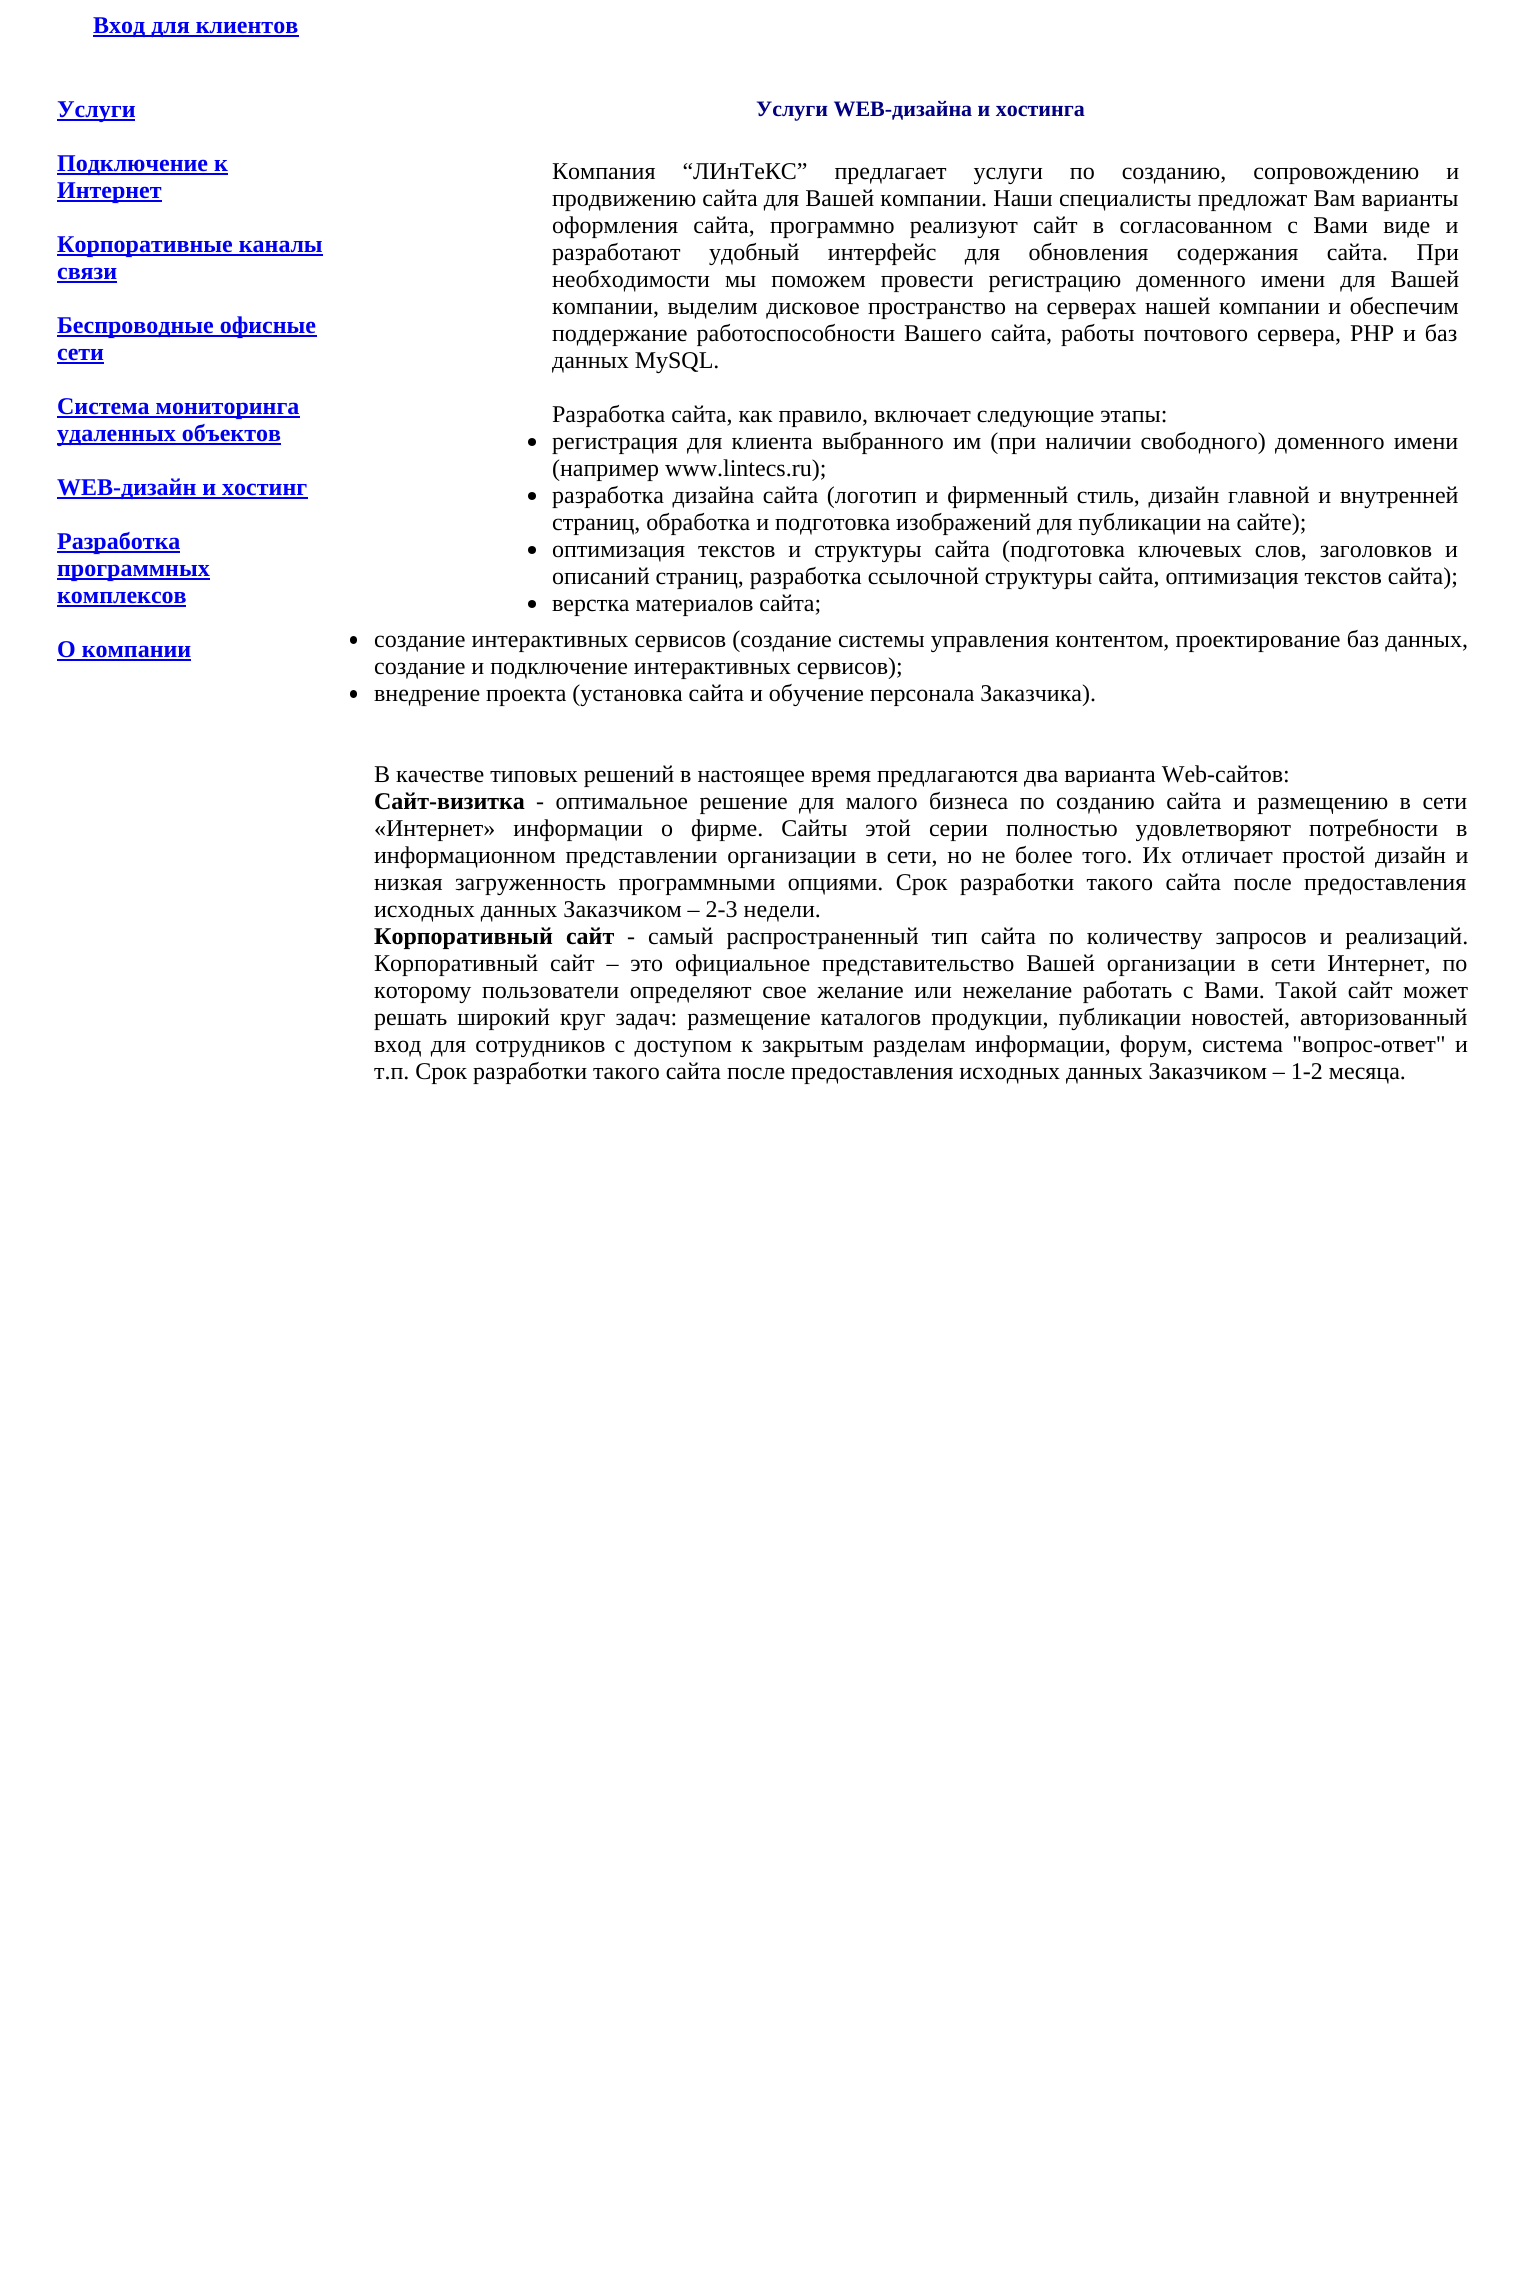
#include <cairo.h>
#include <math.h>
#include <stddef.h>

typedef struct { const char *family; double size; int italic, bold; unsigned color; } style_t;
static cairo_t *ctx;

static void ink(unsigned color) {
    cairo_set_source_rgb(ctx, (color >> 16) / 255.0, (color >> 8 & 255) / 255.0, (color & 255) / 255.0);
}

static void write(double x, double y, const char *s, const style_t *st) {
    cairo_select_font_face(ctx, st->family, st->italic ? CAIRO_FONT_SLANT_ITALIC : CAIRO_FONT_SLANT_NORMAL,
        st->bold ? CAIRO_FONT_WEIGHT_BOLD : CAIRO_FONT_WEIGHT_NORMAL);
    cairo_set_font_size(ctx, st->size);
    ink(st->color);
    cairo_move_to(ctx, x, y);
    cairo_show_text(ctx, s);
}

static void write_spaced(double x, double y, const char *s, double letter, double word) {
    cairo_move_to(ctx, x, y);
    while (*s) {
        char ch[5] = {0};
        int n = 0;
        do ch[n++] = *s++; while ((*s & 0xC0) == 0x80);
        cairo_show_text(ctx, ch);
        cairo_rel_move_to(ctx, letter + word * (*ch == ' '), 0);
    }
}

static void block(double x, double y, double w, double h, unsigned color) {
    ink(color);
    cairo_rectangle(ctx, x, y, w, h);
    cairo_fill(ctx);
}

static void round_path(double x, double y, double w, double h, double r) {
    cairo_new_sub_path(ctx);
    cairo_arc(ctx, x + w - r, y + h - r, r, 0, M_PI / 2);
    cairo_arc(ctx, x + r, y + h - r, r, M_PI / 2, M_PI);
    cairo_arc(ctx, x + r, y + r, r, M_PI, 1.5 * M_PI);
    cairo_arc(ctx, x + w - r, y + r, r, 1.5 * M_PI, 2 * M_PI);
    cairo_close_path(ctx);
}

static const style_t s1 = {"Liberation Serif", 24, 0, 1, 0x0000ee};
static const style_t s2 = {"Liberation Serif", 24, 0, 1, 0x0000ff};
static const style_t s3 = {"Liberation Serif", 22, 0, 1, 0x000080};
static const style_t s4 = {"Liberation Serif", 24, 0, 0, 0x000000};
static const style_t s5 = {"Liberation Serif", 24, 0, 1, 0x000000};

int main(void) {
    cairo_surface_t *surface = cairo_image_surface_create(CAIRO_FORMAT_RGB24, 1539, 2291);
    ctx = cairo_create(surface);
    cairo_font_options_t *options = cairo_font_options_create();
    cairo_font_options_set_hint_metrics(options, CAIRO_HINT_METRICS_OFF);
    cairo_font_options_set_hint_style(options, CAIRO_HINT_STYLE_NONE);
    cairo_set_font_options(ctx, options);
    cairo_set_miter_limit(ctx, 4);
    ink(0xffffff);
    cairo_paint(ctx);
    block(93, 35, 206, 2, 0x0000ee);
    write(93, 33, "Вход для клиентов", &s1);
    block(57, 119, 78, 2, 0x0000ee);
    write(57, 117, "Услуги", &s1);
    block(57, 173, 171, 2, 0x0000ee);
    write(57, 171, "Подключение к", &s1);
    block(57, 200, 105, 2, 0x0000ee);
    write(57, 198, "Интернет", &s1);
    block(57, 254, 266, 2, 0x0000ee);
    write(57, 252, "Корпоративные каналы", &s1);
    write(57, 279, "связи", &s1);
    block(57, 281, 60, 2, 0x0000ee);
    block(57, 335, 260, 2, 0x0000ee);
    write(57, 333, "Беспроводные офисные", &s1);
    write(57, 360, "сети", &s1);
    block(57, 362, 47, 2, 0x0000ee);
    block(57, 416, 243, 2, 0x0000ee);
    write(57, 414, "Система мониторинга", &s1);
    block(57, 443, 224, 2, 0x0000ee);
    write(57, 441, "удаленных объектов", &s1);
    block(57, 497, 251, 2, 0x0000ff);
    write(57, 495, "WEB-дизайн и хостинг", &s2);
    block(57, 551, 123, 2, 0x0000ee);
    write(57, 549, "Разработка", &s1);
    block(57, 578, 153, 2, 0x0000ee);
    write(57, 576, "программных", &s1);
    write(57, 603, "комплексов", &s1);
    block(57, 605, 129, 2, 0x0000ee);
    write(57, 657, "О компании", &s1);
    block(57, 659, 134, 2, 0x0000ee);
    write(756, 116, "Услуги WEB-дизайна и хостинга", &s3);
    cairo_select_font_face(ctx, "Liberation Serif", CAIRO_FONT_SLANT_NORMAL, CAIRO_FONT_WEIGHT_NORMAL);
    cairo_set_font_size(ctx, 24);
    ink(0x000000);
    write_spaced(552, 179, "Компания “ЛИнТеКС” предлагает услуги по созданию, сопровождению и", 0, 21);
    write_spaced(552, 206, "продвижению сайта для Вашей компании. Наши специалисты предложат Вам варианты", 0, 0.25);
    write_spaced(552, 233, "оформления сайта, программно реализуют сайт в согласованном с Вами виде и", 0, 9.25);
    write_spaced(552, 260, "разработают удобный интерфейс для обновления содержания сайта. При", 0, 22.5);
    write_spaced(552, 287, "необходимости мы поможем провести регистрацию доменного имени для Вашей", 0, 9);
    write_spaced(552, 314, "компании, выделим дисковое пространство на серверах нашей компании и обеспечим", 0, 2.5);
    write_spaced(552, 341, "поддержание работоспособности Вашего сайта, работы почтового сервера, РНР и баз", 0, 3);
    write(552, 368, "данных MySQL.", &s4);
    write(552, 422, "Разработка сайта, как правило, включает следующие этапы:", &s4);
    cairo_new_path(ctx);
    cairo_arc(ctx, 532, 442, 4, 0, 2 * M_PI);
    cairo_fill(ctx);
    write_spaced(552, 449, "регистрация для клиента выбранного им (при наличии свободного) доменного имени", 0, 3.25);
    write(552, 476, "(например www.lintecs.ru);", &s4);
    cairo_new_path(ctx);
    cairo_arc(ctx, 532, 496, 4, 0, 2 * M_PI);
    cairo_fill(ctx);
    write_spaced(552, 503, "разработка дизайна сайта (логотип и фирменный стиль, дизайн главной и внутренней", 0, 2.75);
    write(552, 530, "страниц, обработка и подготовка изображений для публикации на сайте);", &s4);
    cairo_new_path(ctx);
    cairo_arc(ctx, 532, 550, 4, 0, 2 * M_PI);
    cairo_fill(ctx);
    write_spaced(552, 557, "оптимизация текстов и структуры сайта", 0, 7);
    write_spaced(1002, 557, "(подготовка ключевых слов, заголовков и", 0, 7);
    write(552, 584, "описаний страниц, разработка ссылочной структуры сайта, оптимизация текстов сайта);", &s4);
    cairo_new_path(ctx);
    cairo_arc(ctx, 532, 604, 4, 0, 2 * M_PI);
    cairo_fill(ctx);
    write(552, 611, "верстка материалов сайта;", &s4);
    round_path(350, 636, 7, 8, 3.5);
    cairo_fill(ctx);
    write_spaced(374, 647, "создание интерактивных сервисов (создание системы управления контентом, проектирование баз данных,", 0, 0.25);
    write(374, 674, "создание и подключение интерактивных сервисов);", &s4);
    round_path(350, 690, 7, 8, 3.5);
    cairo_fill(ctx);
    write(374, 701, "внедрение проекта (установка сайта и обучение персонала Заказчика).", &s4);
    write(374, 782, "В качестве типовых решений в настоящее время предлагаются два варианта Web-сайтов:", &s4);
    write(374, 809, "Сайт-визитка", &s5);
    cairo_select_font_face(ctx, "Liberation Serif", CAIRO_FONT_SLANT_NORMAL, CAIRO_FONT_WEIGHT_NORMAL);
    write_spaced(536, 809, "- оптимальное решение для малого бизнеса по созданию сайта и размещению в сети", 0, 5.5);
    write_spaced(374, 836, "«Интернет» информации о фирме. Сайты этой серии полностью удовлетворяют потребности в", 0, 12);
    write_spaced(374, 863, "информационном представлении организации в сети, но не более того. Их отличает простой дизайн и", 0, 3.75);
    write_spaced(374, 890, "низкая загруженность программными опциями. Срок разработки такого сайта после предоставления", 0, 6.5);
    write(374, 917, "исходных данных Заказчиком – 2-3 недели.", &s4);
    cairo_select_font_face(ctx, "Liberation Serif", CAIRO_FONT_SLANT_NORMAL, CAIRO_FONT_WEIGHT_BOLD);
    write_spaced(374, 944, "Корпоративный сайт", 0, 7);
    cairo_select_font_face(ctx, "Liberation Serif", CAIRO_FONT_SLANT_NORMAL, CAIRO_FONT_WEIGHT_NORMAL);
    write_spaced(627, 944, "- самый распространенный тип сайта по количеству запросов и реализаций.", 0, 7);
    write_spaced(374, 971, "Корпоративный сайт – это официальное представительство Вашей организации в сети Интернет, по", 0, 5.9);
    write_spaced(374, 998, "которому пользователи определяют свое желание или нежелание работать с Вами. Такой сайт может", 0, 4.6);
    write_spaced(374, 1025, "решать широкий круг задач: размещение каталогов продукции, публикации новостей, авторизованный", 0, 4);
    write_spaced(374, 1052, "вход для сотрудников с доступом к закрытым разделам информации, форум, система \"вопрос-ответ\" и", 0, 3.25);
    write(374, 1079, "т.п. Срок разработки такого сайта после предоставления исходных данных Заказчиком – 1-2 месяца.", &s4);
    cairo_surface_write_to_png(surface, "screenshot.png");
    cairo_font_options_destroy(options);
    cairo_destroy(ctx);
    cairo_surface_destroy(surface);
    return 0;
}
